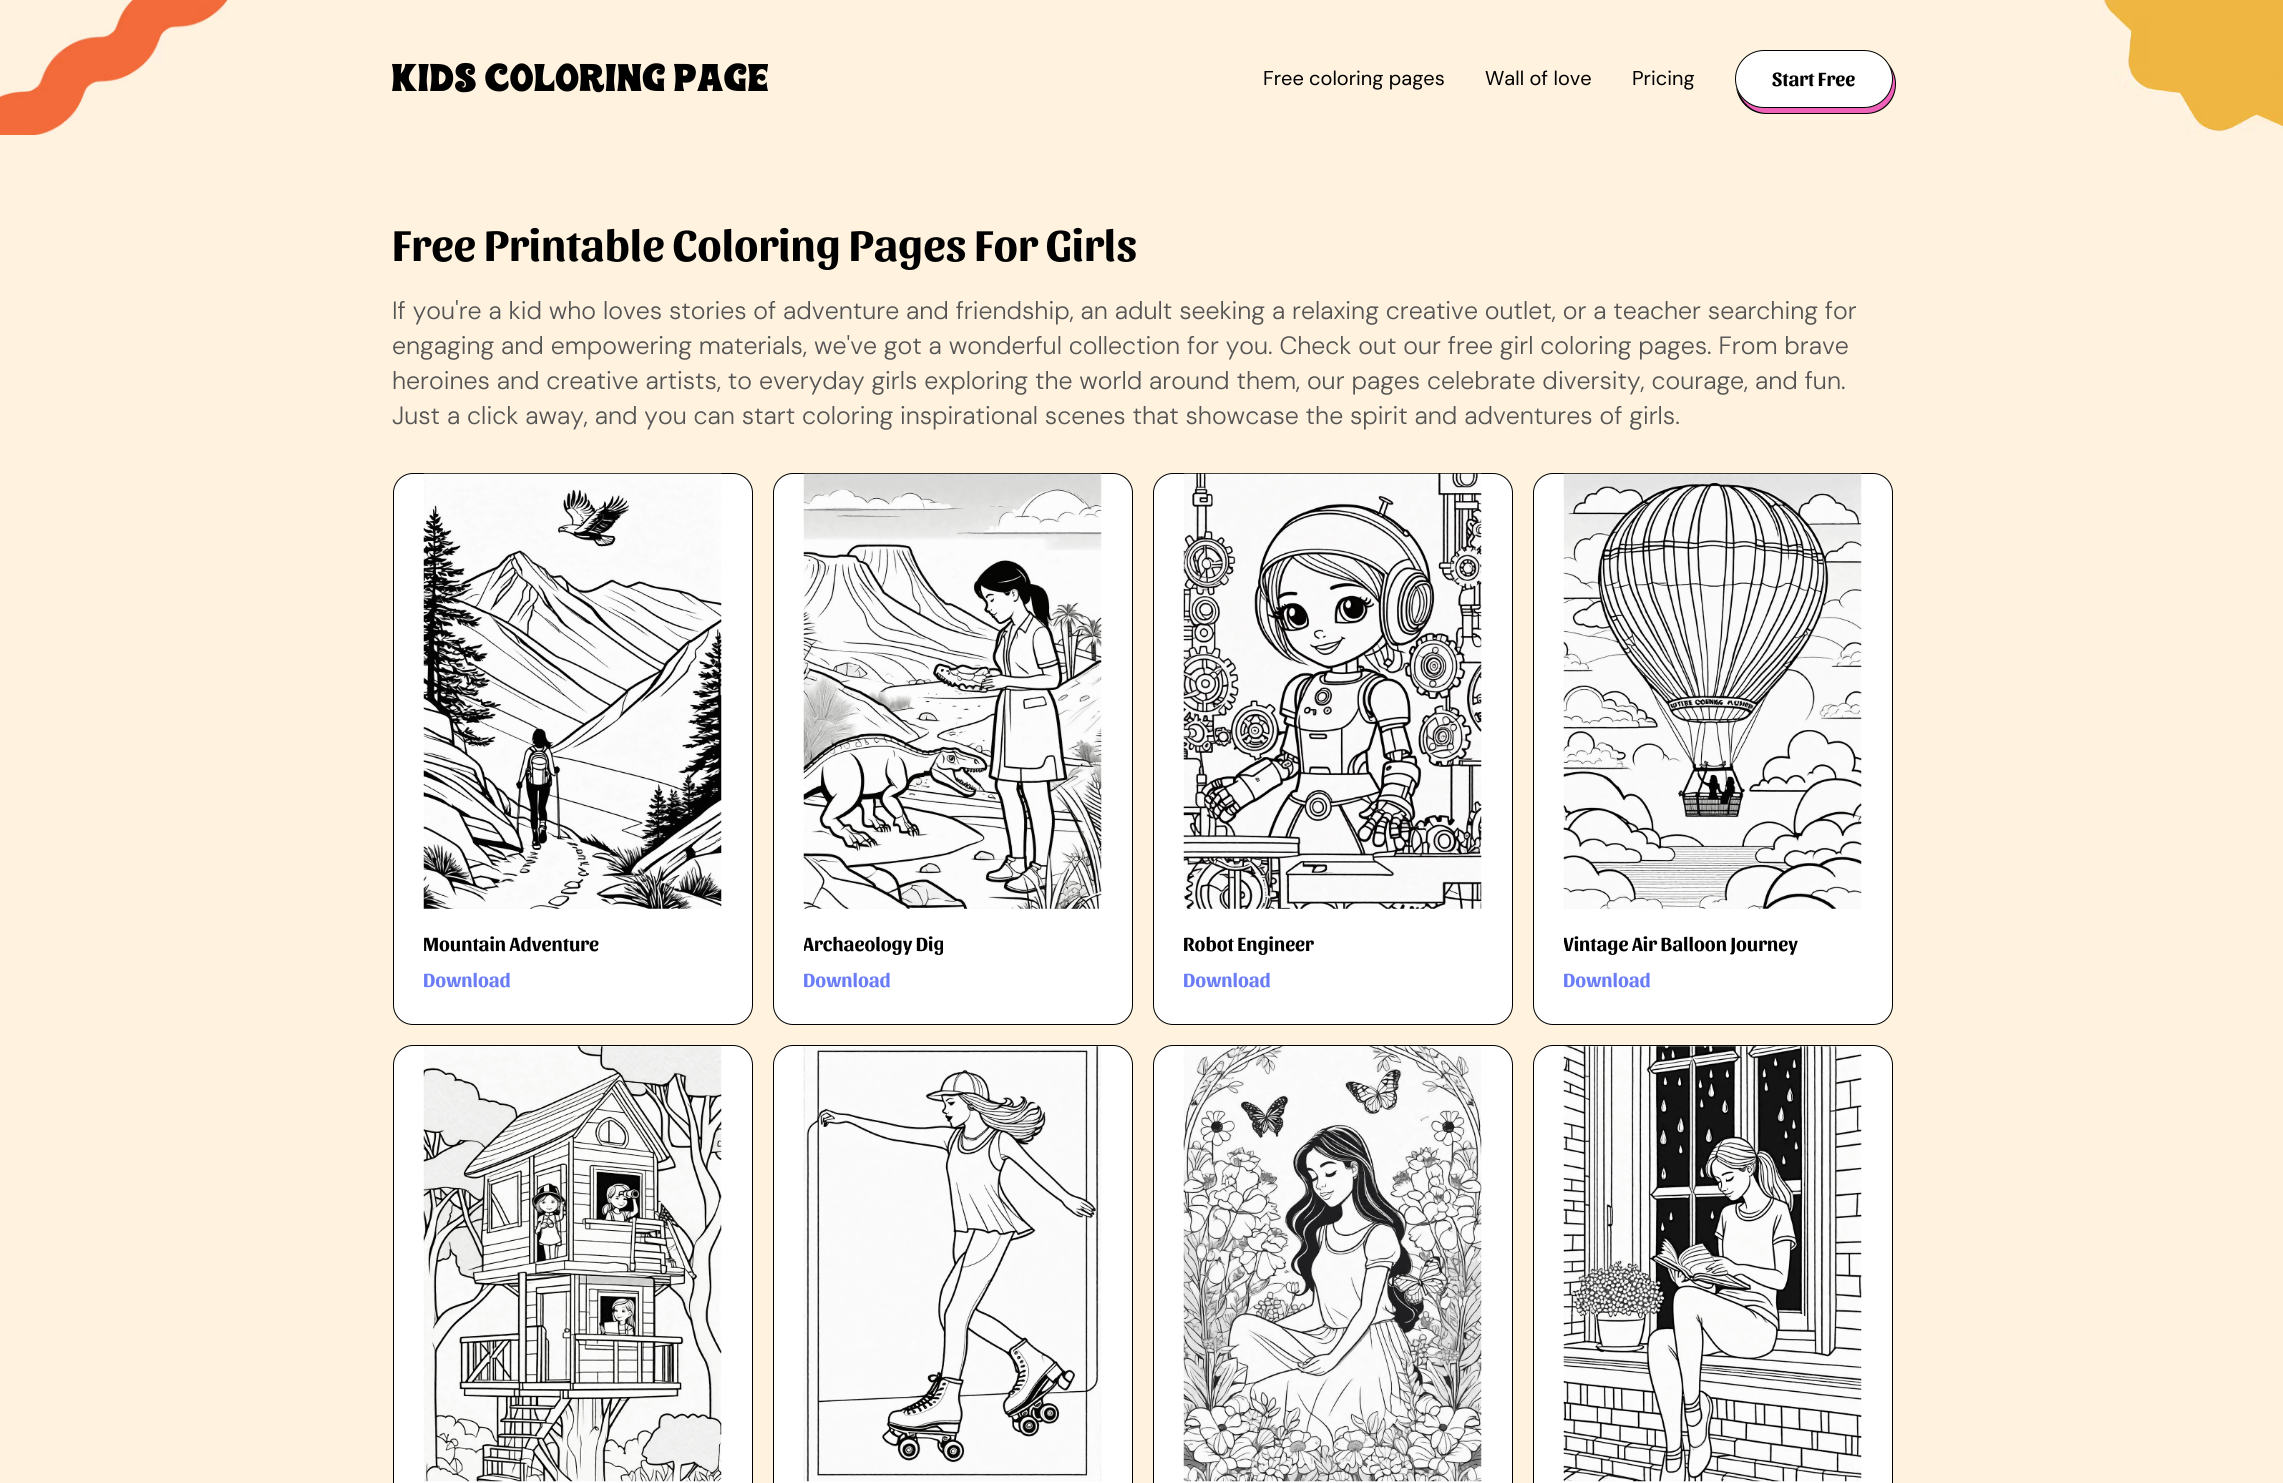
#include <cairo.h>
#include <math.h>
#include <stddef.h>

typedef struct { const char *family; double size; int italic, bold; unsigned color; } style_t;
static cairo_t *ctx;

static void ink(unsigned color) {
    cairo_set_source_rgb(ctx, (color >> 16) / 255.0, (color >> 8 & 255) / 255.0, (color & 255) / 255.0);
}

static void write(double x, double y, const char *s, const style_t *st) {
    cairo_select_font_face(ctx, st->family, st->italic ? CAIRO_FONT_SLANT_ITALIC : CAIRO_FONT_SLANT_NORMAL,
        st->bold ? CAIRO_FONT_WEIGHT_BOLD : CAIRO_FONT_WEIGHT_NORMAL);
    cairo_set_font_size(ctx, st->size);
    ink(st->color);
    cairo_move_to(ctx, x, y);
    cairo_show_text(ctx, s);
}

static void round_path(double x, double y, double w, double h, double r) {
    cairo_new_sub_path(ctx);
    cairo_arc(ctx, x + w - r, y + h - r, r, 0, M_PI / 2);
    cairo_arc(ctx, x + r, y + h - r, r, M_PI / 2, M_PI);
    cairo_arc(ctx, x + r, y + r, r, M_PI, 1.5 * M_PI);
    cairo_arc(ctx, x + w - r, y + r, r, 1.5 * M_PI, 2 * M_PI);
    cairo_close_path(ctx);
}

static void paste(const char *path, double x, double y, double w, double h) {
    cairo_surface_t *image = cairo_image_surface_create_from_png(path);
    cairo_save(ctx);
    cairo_set_source_surface(ctx, image, x, y);
    cairo_rectangle(ctx, x, y, w, h);
    cairo_fill(ctx);
    cairo_restore(ctx);
    cairo_surface_destroy(image);
}

static const style_t s1 = {"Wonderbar", 37.5, 0, 0, 0x000000};
static const style_t s2 = {"DM Sans", 20, 0, 0, 0x000000};
static const style_t s3 = {"Sansita", 20, 0, 1, 0x000000};
static const style_t s4 = {"Sansita", 45, 0, 1, 0x000000};
static const style_t s5 = {"DM Sans Light", 25, 0, 0, 0x545454};
static const style_t s6 = {"Sansita", 20, 0, 1, 0x6a7df6};

int main(void) {
    cairo_surface_t *surface = cairo_image_surface_create(CAIRO_FORMAT_RGB24, 2283, 1483);
    ctx = cairo_create(surface);
    cairo_font_options_t *options = cairo_font_options_create();
    cairo_font_options_set_hint_metrics(options, CAIRO_HINT_METRICS_OFF);
    cairo_font_options_set_hint_style(options, CAIRO_HINT_STYLE_NONE);
    cairo_set_font_options(ctx, options);
    cairo_set_miter_limit(ctx, 4);
    ink(0xfff2df);
    cairo_paint(ctx);
    paste("pic1.png", 0, 0, 228, 135);
    write(392, 91, "kids coloring page", &s1);
    write(1263, 85, "Free coloring pages", &s2);
    write(1485, 85, "Wall of love", &s2);
    write(1632, 85, "Pricing", &s2);
    cairo_new_path(ctx);
    cairo_move_to(ctx, 1736, 87);
    cairo_curve_to(ctx, 1738, 102, 1750, 114, 1766, 114);
    cairo_line_to(ctx, 1866, 114);
    cairo_curve_to(ctx, 1883, 114, 1896, 101, 1896, 84);
    cairo_curve_to(ctx, 1896, 76, 1893, 70, 1889, 64);
    cairo_curve_to(ctx, 1891, 69, 1892, 73, 1892, 79);
    cairo_curve_to(ctx, 1892, 95, 1880, 108, 1864, 108);
    cairo_line_to(ctx, 1764, 108);
    cairo_curve_to(ctx, 1751, 108, 1740, 99, 1736, 87);
    cairo_close_path(ctx);
    cairo_fill(ctx);
    ink(0xef60b7);
    cairo_new_path(ctx);
    cairo_move_to(ctx, 1740, 95);
    cairo_curve_to(ctx, 1745, 106, 1755, 113, 1767, 113);
    cairo_line_to(ctx, 1866, 113);
    cairo_curve_to(ctx, 1882, 113, 1895, 100, 1895, 84);
    cairo_curve_to(ctx, 1895, 78, 1893, 73, 1891, 69);
    cairo_curve_to(ctx, 1892, 72, 1892, 75, 1892, 79);
    cairo_curve_to(ctx, 1892, 95, 1880, 108, 1864, 108);
    cairo_line_to(ctx, 1764, 108);
    cairo_curve_to(ctx, 1754, 108, 1746, 103, 1740, 95);
    cairo_close_path(ctx);
    cairo_fill(ctx);
    ink(0xffffff);
    round_path(1735.5, 50.5, 157, 57, 28.5);
    cairo_fill_preserve(ctx);
    ink(0x000000);
    cairo_set_line_width(ctx, 1);
    cairo_stroke(ctx);
    write(1772, 86, "Start Free", &s3);
    paste("pic2.png", 2101, 0, 182, 133);
    write(392, 261, "Free Printable Coloring Pages For Girls", &s4);
    write(392, 319, "If you're a kid who loves stories of adventure and friendship, an adult seeking a relaxing creative outlet, or a teacher searching for", &s5);
    write(392, 354, "engaging and empowering materials, we've got a wonderful collection for you. Check out our free girl coloring pages. From brave", &s5);
    write(392, 389, "heroines and creative artists, to everyday girls exploring the world around them, our pages celebrate diversity, courage, and fun.", &s5);
    write(392, 424, "Just a click away, and you can start coloring inspirational scenes that showcase the spirit and adventures of girls.", &s5);
    ink(0xffffff);
    round_path(393.5, 473.5, 359, 551, 19.5);
    cairo_fill_preserve(ctx);
    ink(0x000000);
    cairo_stroke(ctx);
    paste("pic3.png", 423, 473, 299, 436);
    write(423, 951, "Mountain Adventure", &s3);
    write(423, 987, "Download", &s6);
    ink(0xffffff);
    round_path(773.5, 473.5, 359, 551, 19.5);
    cairo_fill_preserve(ctx);
    ink(0x000000);
    cairo_stroke(ctx);
    paste("pic4.png", 803, 473, 299, 436);
    cairo_save(ctx);
    cairo_rectangle(ctx, 804, 929, 297, 30);
    cairo_clip(ctx);
    write(803, 951, "Archaeology Dig", &s3);
    cairo_restore(ctx);
    write(803, 987, "Download", &s6);
    ink(0xffffff);
    round_path(1153.5, 473.5, 359, 551, 19.5);
    cairo_fill_preserve(ctx);
    ink(0x000000);
    cairo_stroke(ctx);
    paste("pic5.png", 1183, 473, 299, 436);
    write(1183, 951, "Robot Engineer", &s3);
    write(1183, 987, "Download", &s6);
    ink(0xffffff);
    round_path(1533.5, 473.5, 359, 551, 19.5);
    cairo_fill_preserve(ctx);
    ink(0x000000);
    cairo_stroke(ctx);
    paste("pic6.png", 1563, 473, 299, 436);
    cairo_save(ctx);
    cairo_rectangle(ctx, 1564, 929, 297, 30);
    cairo_clip(ctx);
    write(1563, 951, "Vintage Air Balloon Journey", &s3);
    cairo_restore(ctx);
    write(1563, 987, "Download", &s6);
    ink(0xffffff);
    round_path(393.5, 1045.5, 359, 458, 19.5);
    cairo_fill_preserve(ctx);
    ink(0x000000);
    cairo_stroke(ctx);
    paste("pic7.png", 423, 1046, 299, 436);
    ink(0xffffff);
    round_path(773.5, 1045.5, 359, 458, 19.5);
    cairo_fill_preserve(ctx);
    ink(0x000000);
    cairo_stroke(ctx);
    paste("pic8.png", 803, 1046, 299, 436);
    ink(0xffffff);
    round_path(1153.5, 1045.5, 359, 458, 19.5);
    cairo_fill_preserve(ctx);
    ink(0x000000);
    cairo_stroke(ctx);
    paste("pic9.png", 1183, 1046, 299, 436);
    ink(0xffffff);
    round_path(1533.5, 1045.5, 359, 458, 19.5);
    cairo_fill_preserve(ctx);
    ink(0x000000);
    cairo_stroke(ctx);
    paste("pic10.png", 1563, 1046, 299, 436);
    cairo_surface_write_to_png(surface, "screenshot.png");
    cairo_font_options_destroy(options);
    cairo_destroy(ctx);
    cairo_surface_destroy(surface);
    return 0;
}
